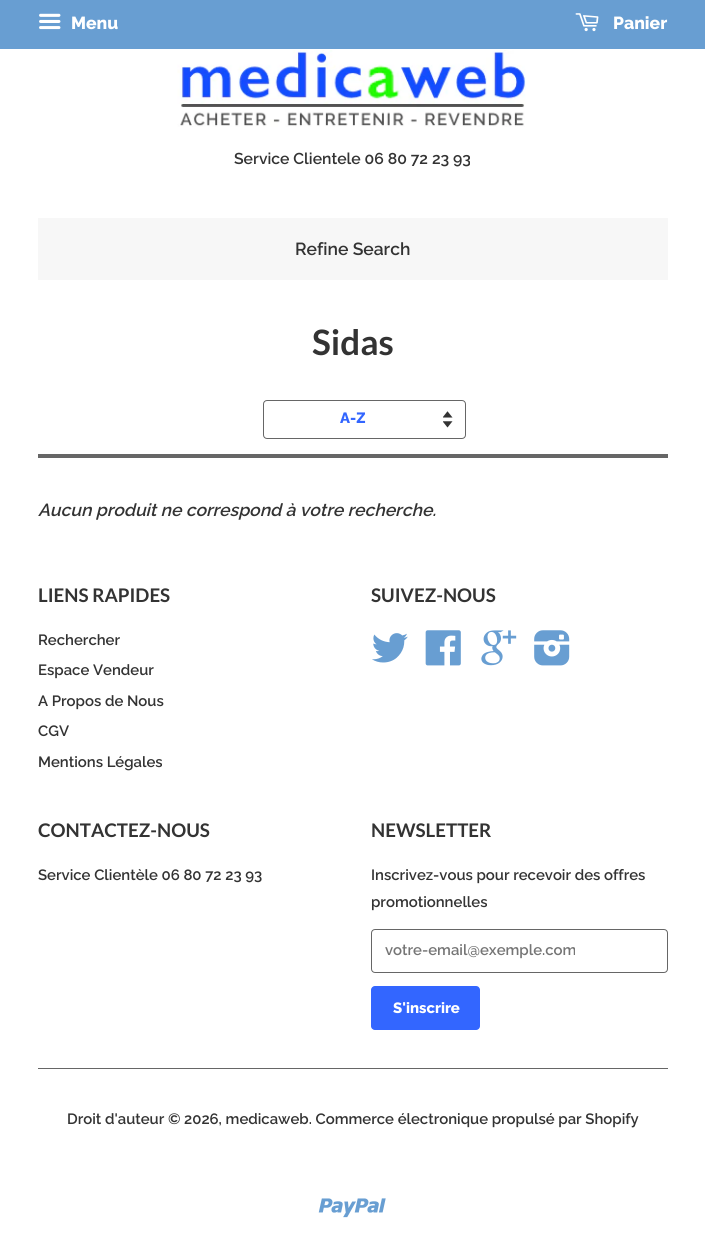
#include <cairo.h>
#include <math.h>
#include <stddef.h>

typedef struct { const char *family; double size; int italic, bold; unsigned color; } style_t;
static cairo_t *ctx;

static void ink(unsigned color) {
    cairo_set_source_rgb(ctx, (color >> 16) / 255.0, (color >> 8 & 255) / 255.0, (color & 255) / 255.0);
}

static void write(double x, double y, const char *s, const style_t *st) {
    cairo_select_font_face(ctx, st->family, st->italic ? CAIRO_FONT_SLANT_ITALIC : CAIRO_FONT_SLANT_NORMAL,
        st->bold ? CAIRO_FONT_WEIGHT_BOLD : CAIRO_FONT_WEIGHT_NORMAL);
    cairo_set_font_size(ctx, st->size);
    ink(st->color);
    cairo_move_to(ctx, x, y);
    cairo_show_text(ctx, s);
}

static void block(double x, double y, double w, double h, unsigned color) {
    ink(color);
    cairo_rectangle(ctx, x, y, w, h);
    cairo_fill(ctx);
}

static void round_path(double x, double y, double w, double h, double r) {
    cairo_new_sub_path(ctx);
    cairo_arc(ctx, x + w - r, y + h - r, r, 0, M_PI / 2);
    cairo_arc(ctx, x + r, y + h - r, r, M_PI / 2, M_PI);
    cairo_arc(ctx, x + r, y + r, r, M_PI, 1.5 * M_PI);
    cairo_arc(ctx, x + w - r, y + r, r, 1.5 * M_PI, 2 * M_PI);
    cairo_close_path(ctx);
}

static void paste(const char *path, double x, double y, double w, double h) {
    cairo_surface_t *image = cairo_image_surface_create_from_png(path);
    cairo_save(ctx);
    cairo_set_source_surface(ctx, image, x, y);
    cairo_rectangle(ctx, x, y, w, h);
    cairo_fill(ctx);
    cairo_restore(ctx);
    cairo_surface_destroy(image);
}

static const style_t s1 = {"Raleway ExtraBold", 17.5, 0, 0, 0xffffff};
static const style_t s2 = {"Raleway SemiBold", 15.75, 0, 0, 0x333333};
static const style_t s3 = {"Raleway SemiBold", 17.5, 0, 0, 0x333333};
static const style_t s4 = {"Lato", 35, 0, 1, 0x333333};
static const style_t s5 = {"Raleway ExtraBold", 14.9, 0, 0, 0x3366ff};
static const style_t s6 = {"Raleway SemiBold", 17.5, 1, 0, 0x333333};
static const style_t s7 = {"Lato", 18.75, 0, 1, 0x333333};
static const style_t s8 = {"Raleway SemiBold", 14.9, 0, 0, 0x333333};
static const style_t s9 = {"Raleway SemiBold", 14.9, 0, 0, 0x757575};
static const style_t s10 = {"Raleway ExtraBold", 14.9, 0, 0, 0xffffff};

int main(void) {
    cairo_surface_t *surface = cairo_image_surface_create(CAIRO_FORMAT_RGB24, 705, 1253);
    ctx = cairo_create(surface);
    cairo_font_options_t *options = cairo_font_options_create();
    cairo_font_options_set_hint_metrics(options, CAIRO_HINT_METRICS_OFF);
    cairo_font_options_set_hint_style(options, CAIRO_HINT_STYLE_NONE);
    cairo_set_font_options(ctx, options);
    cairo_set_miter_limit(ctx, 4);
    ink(0xffffff);
    cairo_paint(ctx);
    block(0, 0, 705, 49, 0x689ed2);
    paste("pic1.png", 39, 13, 22, 17);
    write(71, 29, "Menu", &s1);
    paste("pic2.png", 575, 13, 24, 19);
    write(613, 29, "Panier", &s1);
    paste("pic3.png", 177, 50, 349, 77);
    write(234, 164, "Service Clientele 06 80 72 23 93", &s2);
    block(38, 218, 630, 62, 0xf7f7f7);
    write(295, 255, "Refine Search", &s3);
    block(38, 454, 630, 4, 0x666666);
    write(312, 355, "Sidas", &s4);
    paste("pic4.png", 443, 411, 10, 17);
    round_path(263.5, 400.5, 202, 38, 3.5);
    ink(0x666666);
    cairo_set_line_width(ctx, 1);
    cairo_stroke(ctx);
    write(340, 423, "A-Z", &s5);
    write(38, 516, "Aucun produit ne correspond à votre recherche.", &s6);
    write(38, 602, "LIENS RAPIDES", &s7);
    write(38, 645, "Rechercher", &s8);
    write(38, 675, "Espace Vendeur", &s8);
    write(38, 706, "A Propos de Nous", &s8);
    write(38, 736, "CGV", &s8);
    write(38, 767, "Mentions Légales", &s8);
    write(371, 602, "SUIVEZ-NOUS", &s7);
    paste("pic5.png", 372, 633, 36, 30);
    paste("pic6.png", 425, 630, 36, 36);
    paste("pic7.png", 481, 630, 36, 36);
    paste("pic8.png", 534, 630, 36, 36);
    write(38, 837, "CONTACTEZ-NOUS", &s7);
    write(38, 880, "Service Clientèle 06 80 72 23 93", &s8);
    write(371, 837, "NEWSLETTER", &s7);
    write(371, 880, "Inscrivez-vous pour recevoir des offres", &s8);
    write(371, 907, "promotionnelles", &s8);
    round_path(371.5, 929.5, 296, 43, 3.5);
    ink(0x666666);
    cairo_stroke(ctx);
    write(385, 955, "votre-email@exemple.com", &s9);
    ink(0x3366ff);
    round_path(371, 986, 109, 44, 4);
    cairo_fill(ctx);
    write(393, 1013, "S'inscrire", &s10);
    block(38, 1068, 630, 1, 0x666666);
    write(67, 1124, "Droit d'auteur © 2026, medicaweb. Commerce électronique propulsé par Shopify", &s8);
    paste("pic9.png", 318, 1198, 68, 20);
    cairo_surface_write_to_png(surface, "screenshot.png");
    cairo_font_options_destroy(options);
    cairo_destroy(ctx);
    cairo_surface_destroy(surface);
    return 0;
}
